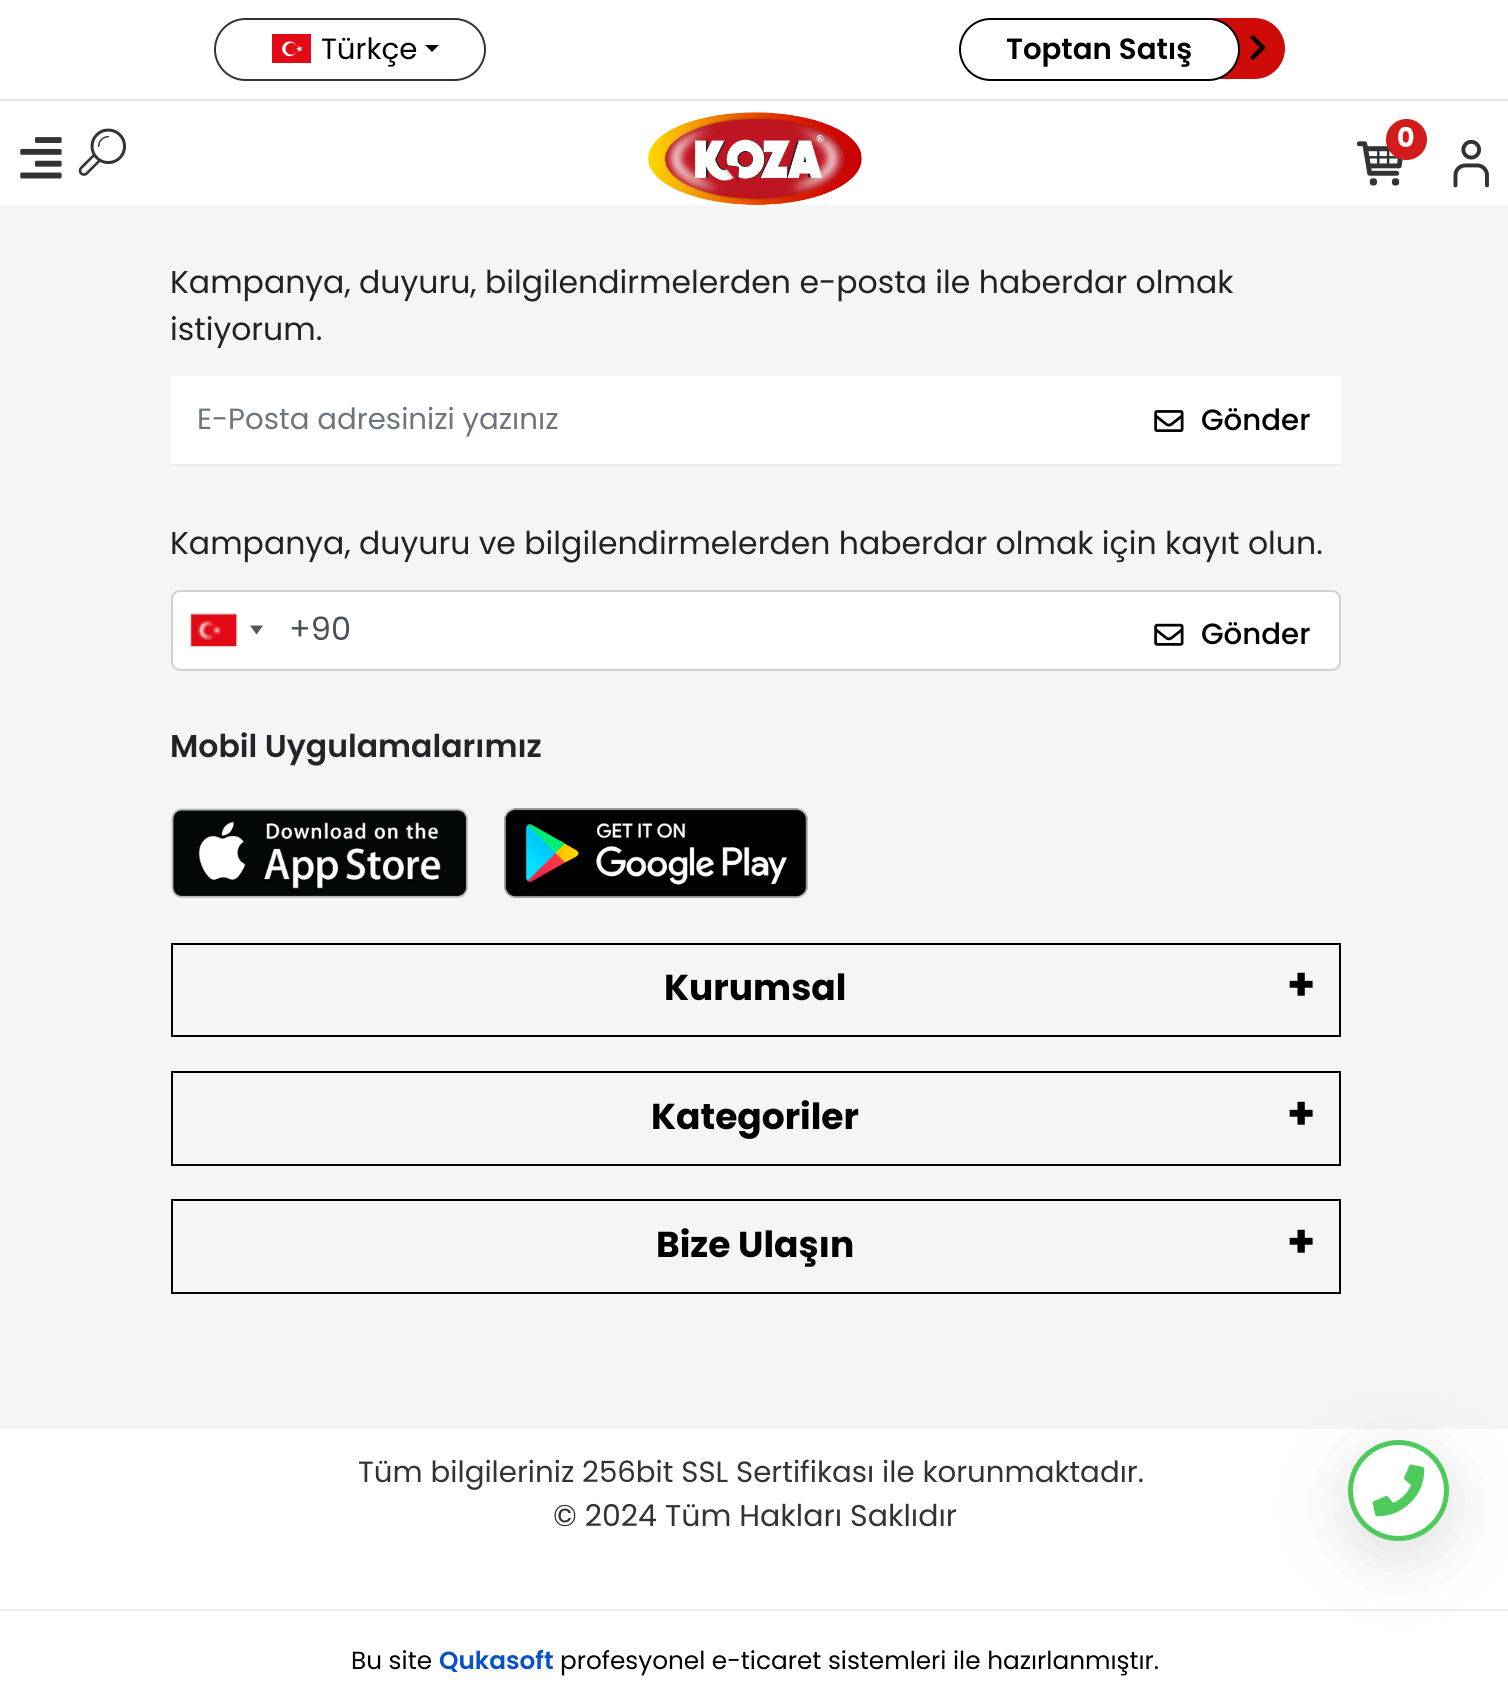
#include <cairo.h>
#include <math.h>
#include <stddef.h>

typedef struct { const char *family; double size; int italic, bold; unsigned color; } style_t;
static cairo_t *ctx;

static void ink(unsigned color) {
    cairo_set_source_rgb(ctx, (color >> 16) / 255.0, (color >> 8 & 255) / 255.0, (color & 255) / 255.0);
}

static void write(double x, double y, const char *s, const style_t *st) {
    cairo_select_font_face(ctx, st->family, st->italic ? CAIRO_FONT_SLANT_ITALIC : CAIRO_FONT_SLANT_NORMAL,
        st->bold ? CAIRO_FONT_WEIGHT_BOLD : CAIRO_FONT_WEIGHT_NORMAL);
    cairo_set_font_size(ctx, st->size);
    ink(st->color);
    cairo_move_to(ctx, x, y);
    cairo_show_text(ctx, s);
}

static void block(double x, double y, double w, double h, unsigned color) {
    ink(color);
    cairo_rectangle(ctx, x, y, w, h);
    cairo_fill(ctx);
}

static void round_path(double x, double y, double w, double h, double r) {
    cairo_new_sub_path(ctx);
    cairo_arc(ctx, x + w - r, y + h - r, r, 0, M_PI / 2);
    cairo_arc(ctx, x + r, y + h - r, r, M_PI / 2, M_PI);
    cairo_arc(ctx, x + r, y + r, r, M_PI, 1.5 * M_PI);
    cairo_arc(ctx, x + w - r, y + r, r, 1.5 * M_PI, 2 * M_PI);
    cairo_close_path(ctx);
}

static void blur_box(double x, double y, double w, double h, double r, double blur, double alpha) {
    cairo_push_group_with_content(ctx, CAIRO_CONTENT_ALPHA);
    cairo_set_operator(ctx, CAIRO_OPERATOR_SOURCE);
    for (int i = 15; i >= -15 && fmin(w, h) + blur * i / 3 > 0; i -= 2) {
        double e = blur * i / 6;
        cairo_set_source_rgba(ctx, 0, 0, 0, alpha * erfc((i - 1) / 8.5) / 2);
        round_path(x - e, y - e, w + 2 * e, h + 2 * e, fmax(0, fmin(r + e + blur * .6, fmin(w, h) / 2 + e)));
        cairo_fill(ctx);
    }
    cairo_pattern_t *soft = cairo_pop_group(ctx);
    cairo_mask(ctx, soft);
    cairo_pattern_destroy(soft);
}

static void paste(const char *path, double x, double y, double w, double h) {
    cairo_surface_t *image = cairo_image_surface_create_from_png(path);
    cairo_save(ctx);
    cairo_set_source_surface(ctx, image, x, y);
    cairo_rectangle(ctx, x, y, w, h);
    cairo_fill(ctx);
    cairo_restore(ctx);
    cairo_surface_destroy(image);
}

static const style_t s1 = {"Poppins", 29.25, 0, 0, 0x000000};
static const style_t s2 = {"Poppins SemiBold", 29.25, 0, 0, 0x000000};
static const style_t s3 = {"Poppins", 27, 0, 1, 0xffffff};
static const style_t s4 = {"Poppins", 31.5, 0, 0, 0x222222};
static const style_t s5 = {"Poppins", 29.25, 0, 0, 0x6c757d};
static const style_t s6 = {"Poppins Medium", 29.25, 0, 0, 0x000000};
static const style_t s7 = {"Poppins", 32, 0, 0, 0x495057};
static const style_t s8 = {"Poppins SemiBold", 31.5, 0, 0, 0x212529};
static const style_t s9 = {"Poppins", 36, 0, 1, 0x000000};
static const style_t s10 = {"Poppins", 45, 0, 1, 0x000000};
static const style_t s11 = {"Poppins", 29.25, 0, 0, 0x333333};
static const style_t s12 = {"Poppins", 30, 0, 0, 0x333333};
static const style_t s13 = {"Poppins", 24.75, 0, 0, 0x000000};
static const style_t s14 = {"Poppins SemiBold", 24.75, 0, 0, 0x0552c6};

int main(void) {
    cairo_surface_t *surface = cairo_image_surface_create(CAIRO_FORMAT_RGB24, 1508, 1708);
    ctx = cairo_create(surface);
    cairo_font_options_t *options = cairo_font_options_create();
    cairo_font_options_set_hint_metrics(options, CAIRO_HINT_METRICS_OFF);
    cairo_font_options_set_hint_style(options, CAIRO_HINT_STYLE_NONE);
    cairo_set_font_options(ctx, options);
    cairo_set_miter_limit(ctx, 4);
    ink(0xf5f5f5);
    cairo_paint(ctx);
    block(0, 0, 1508, 205, 0xffffff);
    block(0, 99, 1508, 2, 0xe5e5e4);
    round_path(215, 19, 270, 61, 30.5);
    ink(0x333333);
    cairo_stroke(ctx);
    paste("pic1.png", 272, 34, 39, 29);
    write(321, 59, "Türkçe", &s1);
    cairo_new_path(ctx);
    cairo_move_to(ctx, 425, 45);
    cairo_line_to(ctx, 439, 45);
    cairo_line_to(ctx, 432, 52);
    cairo_close_path(ctx);
    cairo_fill(ctx);
    ink(0xce0b06);
    round_path(1151, 19, 133, 59, 29.5);
    cairo_fill_preserve(ctx);
    cairo_stroke(ctx);
    ink(0xffffff);
    round_path(960, 19, 279, 61, 30.5);
    cairo_fill_preserve(ctx);
    ink(0x000000);
    cairo_stroke(ctx);
    write(1006, 59, "Toptan Satış", &s2);
    paste("pic2.png", 1250, 35, 16, 25);
    paste("pic3.png", 20, 137, 42, 42);
    paste("pic4.png", 78, 128, 48, 48);
    paste("pic5.png", 648, 112, 214, 93);
    paste("pic6.png", 1356, 141, 47, 45);
    ink(0xd21c1c);
    cairo_arc(ctx, 1406.5, 139.5, 20.5, 0, 2 * M_PI);
    cairo_fill(ctx);
    write(1397, 147, "0", &s3);
    paste("pic7.png", 1453, 139, 36, 49);
    write(170, 293, "Kampanya, duyuru, bilgilendirmelerden e-posta ile haberdar olmak", &s4);
    write(170, 340, "istiyorum.", &s4);
    block(171, 376, 1170, 88, 0xffffff);
    block(171, 464, 1170, 2, 0xebecee);
    write(197, 429, "E-Posta adresinizi yazınız", &s5);
    paste("pic8.png", 1154, 410, 30, 22);
    write(1201, 430, "Gönder", &s6);
    write(170, 554, "Kampanya, duyuru ve bilgilendirmelerden haberdar olmak için kayıt olun.", &s4);
    ink(0xffffff);
    round_path(173, 592, 1166, 76, 7);
    cairo_fill(ctx);
    round_path(172, 591, 1168, 79, 8);
    ink(0xced4da);
    cairo_stroke(ctx);
    ink(0x888888);
    blur_box(191, 614, 45, 32, 0, 1, 1);
    block(191, 614, 45, 32, 0xdbdbdb);
    paste("pic9.png", 191, 614, 46, 32);
    ink(0x555555);
    cairo_new_path(ctx);
    cairo_move_to(ctx, 250, 625.5);
    cairo_line_to(ctx, 263, 625.5);
    cairo_line_to(ctx, 256.5, 634.5);
    cairo_close_path(ctx);
    cairo_fill(ctx);
    write(289, 640, "+90", &s7);
    paste("pic10.png", 1154, 623, 30, 23);
    write(1201, 644, "Gönder", &s6);
    write(170, 757, "Mobil Uygulamalarımız", &s8);
    paste("pic11.png", 171, 808, 297, 90);
    paste("pic12.png", 504, 808, 304, 90);
    cairo_rectangle(ctx, 172, 944, 1168, 92);
    ink(0x000000);
    cairo_stroke(ctx);
    write(664, 1000, "Kurumsal", &s9);
    write(1287, 1000, "+", &s10);
    cairo_rectangle(ctx, 172, 1072, 1168, 93);
    cairo_stroke(ctx);
    write(651, 1129, "Kategoriler", &s9);
    write(1287, 1129, "+", &s10);
    cairo_rectangle(ctx, 172, 1200, 1168, 93);
    cairo_stroke(ctx);
    write(656, 1257, "Bize Ulaşın", &s9);
    write(1287, 1257, "+", &s10);
    block(0, 1429, 1508, 180, 0xffffff);
    write(358, 1482, "Tüm bilgileriniz 256bit SSL Sertifikası ile korunmaktadır.", &s11);
    write(553, 1526, "© 2024 Tüm Hakları Saklıdır", &s12);
    block(0, 1611, 1508, 97, 0xffffff);
    block(0, 1609, 1508, 2, 0xeeeeee);
    ink(0x64646f);
    blur_box(1348, 1456, 101, 101, 50.5, 32.5, 0.2);
    ink(0xffffff);
    cairo_arc(ctx, 1398.5, 1490.5, 48, 0, 2 * M_PI);
    cairo_fill_preserve(ctx);
    ink(0x4dca5b);
    cairo_set_line_width(ctx, 5);
    cairo_stroke(ctx);
    paste("pic13.png", 1372, 1464, 53, 53);
    write(351, 1669, "Bu site", &s13);
    write(439, 1669, "Qukasoft", &s14);
    write(560, 1669, "profesyonel e-ticaret sistemleri ile hazırlanmıştır.", &s13);
    cairo_surface_write_to_png(surface, "screenshot.png");
    cairo_font_options_destroy(options);
    cairo_destroy(ctx);
    cairo_surface_destroy(surface);
    return 0;
}
